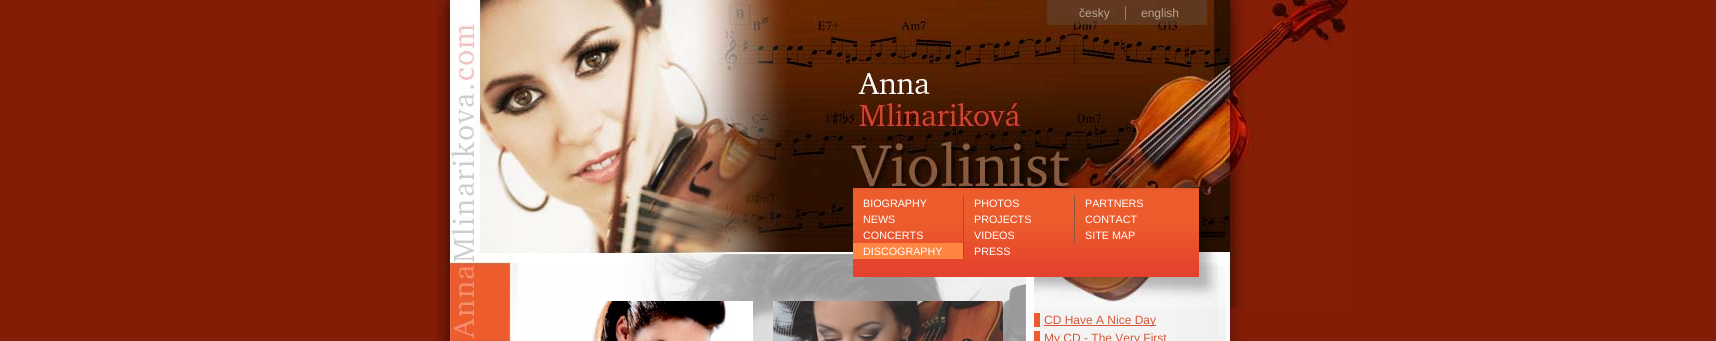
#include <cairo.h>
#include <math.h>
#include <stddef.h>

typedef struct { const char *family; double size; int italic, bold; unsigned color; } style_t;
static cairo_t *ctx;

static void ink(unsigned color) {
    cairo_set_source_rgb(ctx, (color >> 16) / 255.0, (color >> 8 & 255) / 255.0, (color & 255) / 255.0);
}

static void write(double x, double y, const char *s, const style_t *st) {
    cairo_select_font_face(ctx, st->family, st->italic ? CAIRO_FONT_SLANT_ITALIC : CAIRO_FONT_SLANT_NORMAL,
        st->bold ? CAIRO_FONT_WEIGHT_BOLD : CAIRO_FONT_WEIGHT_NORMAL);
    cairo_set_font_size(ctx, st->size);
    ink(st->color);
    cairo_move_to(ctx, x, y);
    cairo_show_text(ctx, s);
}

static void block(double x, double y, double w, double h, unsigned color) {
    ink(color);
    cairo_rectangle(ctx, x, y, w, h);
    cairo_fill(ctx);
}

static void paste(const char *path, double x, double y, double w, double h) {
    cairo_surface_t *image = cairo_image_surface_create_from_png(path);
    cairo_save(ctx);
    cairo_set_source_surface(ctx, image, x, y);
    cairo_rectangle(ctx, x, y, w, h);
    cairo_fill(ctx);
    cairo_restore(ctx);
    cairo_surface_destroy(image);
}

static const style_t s1 = {"Liberation Sans", 12, 0, 0, 0xb9a393};
static const style_t s2 = {"Liberation Sans", 10.75, 0, 0, 0xffffff};
static const style_t s3 = {"Liberation Sans", 12, 0, 0, 0xd5573a};

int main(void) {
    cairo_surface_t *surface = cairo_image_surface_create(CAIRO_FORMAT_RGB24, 1716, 341);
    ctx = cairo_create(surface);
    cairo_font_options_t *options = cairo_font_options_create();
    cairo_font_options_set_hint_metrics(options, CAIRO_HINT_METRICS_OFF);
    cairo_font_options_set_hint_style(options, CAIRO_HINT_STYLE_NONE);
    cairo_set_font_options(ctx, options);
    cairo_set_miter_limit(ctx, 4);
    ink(0x841d06);
    cairo_paint(ctx);
    paste("pic1.png", 517, 308, 725, 33);
    paste("pic2.png", 436, 0, 81, 341);
    paste("pic3.png", 479, 265, 30, 76);
    paste("pic4.png", 517, 0, 831, 308);
    paste("pic5.png", 518, 254, 516, 87);
    write(1079, 17, "česky", &s1);
    block(1125, 6, 1, 14, 0xec5c2c);
    write(1141, 17, "english", &s1);
    paste("pic6.png", 853, 188, 346, 89);
    write(863, 207, "BIOGRAPHY", &s2);
    write(863, 223, "NEWS", &s2);
    write(863, 239, "CONCERTS", &s2);
    block(853, 243, 110, 16, 0xff8540);
    write(863, 255, "DISCOGRAPHY", &s2);
    block(963, 195, 1, 64, 0x895a3c);
    write(974, 207, "PHOTOS", &s2);
    write(974, 223, "PROJECTS", &s2);
    write(974, 239, "VIDEOS", &s2);
    write(974, 255, "PRESS", &s2);
    block(1074, 195, 1, 48, 0x895a3c);
    write(1085, 207, "PARTNERS", &s2);
    write(1085, 223, "CONTACT", &s2);
    write(1085, 239, "SITE MAP", &s2);
    paste("pic7.png", 590, 301, 163, 40);
    paste("pic8.png", 773, 301, 230, 40);
    block(1034, 313, 6, 14, 0xec5c2c);
    block(1044, 325, 112, 1, 0xd5573a);
    write(1044, 324, "CD Have A Nice Day", &s3);
    block(1034, 331, 6, 10, 0xec5c2c);
    write(1044, 342, "My CD - The Very First", &s3);
    cairo_surface_write_to_png(surface, "screenshot.png");
    cairo_font_options_destroy(options);
    cairo_destroy(ctx);
    cairo_surface_destroy(surface);
    return 0;
}
